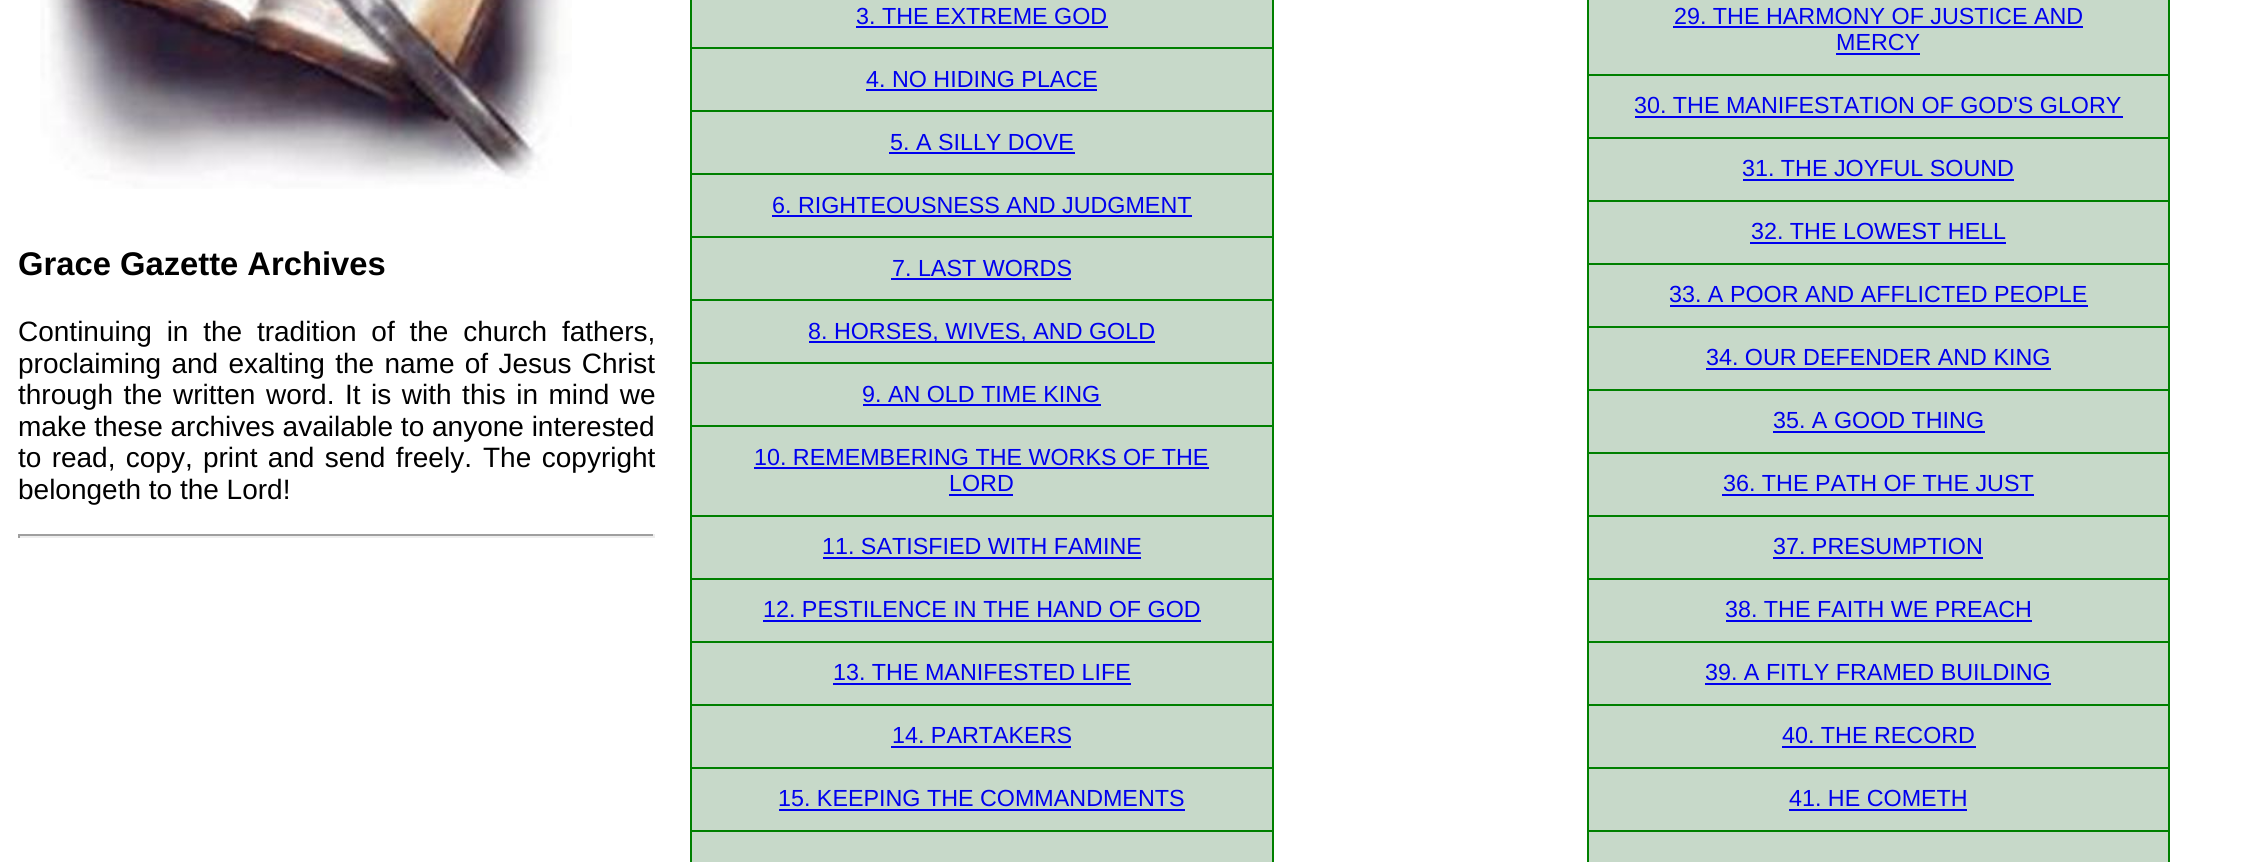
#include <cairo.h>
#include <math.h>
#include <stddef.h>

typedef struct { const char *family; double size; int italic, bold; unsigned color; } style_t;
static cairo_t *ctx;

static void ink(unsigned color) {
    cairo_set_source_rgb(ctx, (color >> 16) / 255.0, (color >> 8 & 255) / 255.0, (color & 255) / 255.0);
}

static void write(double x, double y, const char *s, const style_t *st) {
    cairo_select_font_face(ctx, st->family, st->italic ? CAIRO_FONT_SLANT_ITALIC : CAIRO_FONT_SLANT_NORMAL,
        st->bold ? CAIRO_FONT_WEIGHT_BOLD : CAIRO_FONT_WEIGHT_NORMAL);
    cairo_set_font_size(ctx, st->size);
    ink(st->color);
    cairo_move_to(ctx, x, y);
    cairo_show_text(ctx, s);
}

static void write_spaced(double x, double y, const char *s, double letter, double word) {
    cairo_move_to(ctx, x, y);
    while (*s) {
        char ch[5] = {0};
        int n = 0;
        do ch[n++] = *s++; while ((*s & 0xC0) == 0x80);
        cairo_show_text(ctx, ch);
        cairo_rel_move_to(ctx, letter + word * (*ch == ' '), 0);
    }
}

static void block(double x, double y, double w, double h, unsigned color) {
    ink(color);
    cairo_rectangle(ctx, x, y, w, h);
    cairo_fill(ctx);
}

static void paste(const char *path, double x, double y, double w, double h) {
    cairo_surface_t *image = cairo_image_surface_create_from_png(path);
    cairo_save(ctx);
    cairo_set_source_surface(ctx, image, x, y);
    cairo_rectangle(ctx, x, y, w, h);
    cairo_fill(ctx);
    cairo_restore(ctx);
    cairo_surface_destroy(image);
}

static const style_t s1 = {"Liberation Sans", 32.75, 0, 1, 0x000000};
static const style_t s2 = {"Liberation Sans", 28, 0, 0, 0x000000};
static const style_t s3 = {"Liberation Sans", 23.3, 0, 0, 0x0000ee};

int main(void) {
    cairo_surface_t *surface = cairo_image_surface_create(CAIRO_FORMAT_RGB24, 2241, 862);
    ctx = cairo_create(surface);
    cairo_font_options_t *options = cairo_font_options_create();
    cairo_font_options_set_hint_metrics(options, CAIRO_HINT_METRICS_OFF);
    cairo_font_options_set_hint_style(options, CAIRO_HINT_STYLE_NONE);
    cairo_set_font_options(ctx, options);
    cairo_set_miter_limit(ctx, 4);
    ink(0xffffff);
    cairo_paint(ctx);
    paste("pic1.png", 40, 0, 532, 189);
    write(18, 275, "Grace Gazette Archives", &s1);
    cairo_select_font_face(ctx, "Liberation Sans", CAIRO_FONT_SLANT_NORMAL, CAIRO_FONT_WEIGHT_NORMAL);
    cairo_set_font_size(ctx, 28);
    write_spaced(18, 341, "Continuing in the tradition of the church fathers,", 0, 7);
    write_spaced(18, 373, "proclaiming and exalting the name of Jesus Christ", 0, 2.5);
    write_spaced(18, 404, "through the written word. It is with this in mind we", 0, 2.75);
    write(18, 436, "make these archives available to anyone interested", &s2);
    write_spaced(18, 467, "to read, copy, print and send freely.", 0, 2.5);
    write_spaced(483, 467, "The copyright", 0, 2.75);
    write(18, 499, "belongeth to the Lord!", &s2);
    block(18, 534, 637, 2, 0x9f9f9f);
    block(653, 534, 2, 4, 0xeeeeee);
    block(18, 536, 637, 2, 0xeeeeee);
    block(18, 534, 2, 4, 0x9f9f9f);
    block(692, 0, 580, 47, 0xc7d9c9);
    block(1272, 0, 2, 47, 0x008000);
    block(690, 0, 2, 47, 0x008000);
    write(856, 24, "3. THE EXTREME GOD", &s3);
    block(856, 26, 252, 2, 0x0000ee);
    block(692, 49, 580, 61, 0xc7d9c9);
    block(690, 47, 584, 2, 0x008000);
    block(1272, 47, 2, 63, 0x008000);
    block(690, 47, 2, 63, 0x008000);
    write(866, 87, "4. NO HIDING PLACE", &s3);
    block(866, 89, 231, 2, 0x0000ee);
    block(692, 112, 580, 61, 0xc7d9c9);
    block(690, 110, 584, 2, 0x008000);
    block(1272, 110, 2, 63, 0x008000);
    block(690, 110, 2, 63, 0x008000);
    write(890, 150, "5. A SILLY DOVE", &s3);
    block(889, 152, 186, 2, 0x0000ee);
    block(692, 175, 580, 61, 0xc7d9c9);
    block(690, 173, 584, 2, 0x008000);
    block(1272, 173, 2, 63, 0x008000);
    block(690, 173, 2, 63, 0x008000);
    write(772, 213, "6. RIGHTEOUSNESS AND JUDGMENT", &s3);
    block(772, 215, 420, 2, 0x0000ee);
    block(692, 238, 580, 61, 0xc7d9c9);
    block(690, 236, 584, 2, 0x008000);
    block(1272, 236, 2, 63, 0x008000);
    block(690, 236, 2, 63, 0x008000);
    write(892, 276, "7. LAST WORDS", &s3);
    block(891, 278, 180, 2, 0x0000ee);
    block(692, 301, 580, 61, 0xc7d9c9);
    block(690, 299, 584, 2, 0x008000);
    block(1272, 299, 2, 63, 0x008000);
    block(690, 299, 2, 63, 0x008000);
    block(809, 341, 346, 2, 0x0000ee);
    write(808, 339, "8. HORSES, WIVES, AND GOLD", &s3);
    block(692, 364, 580, 61, 0xc7d9c9);
    block(690, 362, 584, 2, 0x008000);
    block(1272, 362, 2, 63, 0x008000);
    block(690, 362, 2, 63, 0x008000);
    write(862, 402, "9. AN OLD TIME KING", &s3);
    block(863, 404, 238, 2, 0x0000ee);
    block(692, 427, 580, 88, 0xc7d9c9);
    block(690, 425, 584, 2, 0x008000);
    block(1272, 425, 2, 90, 0x008000);
    block(690, 425, 2, 90, 0x008000);
    write(754, 465, "10. REMEMBERING THE WORKS OF THE", &s3);
    block(754, 467, 455, 2, 0x0000ee);
    write(949, 491, "LORD", &s3);
    block(949, 494, 64, 2, 0x0000ee);
    block(692, 517, 580, 61, 0xc7d9c9);
    block(690, 515, 584, 2, 0x008000);
    block(1272, 515, 2, 63, 0x008000);
    block(690, 515, 2, 63, 0x008000);
    write(822, 554, "11. SATISFIED WITH FAMINE", &s3);
    block(823, 557, 318, 2, 0x0000ee);
    block(692, 580, 580, 61, 0xc7d9c9);
    block(690, 578, 584, 2, 0x008000);
    block(1272, 578, 2, 63, 0x008000);
    block(690, 578, 2, 63, 0x008000);
    write(763, 617, "12. PESTILENCE IN THE HAND OF GOD", &s3);
    block(763, 620, 438, 2, 0x0000ee);
    block(692, 643, 580, 61, 0xc7d9c9);
    block(690, 641, 584, 2, 0x008000);
    block(1272, 641, 2, 63, 0x008000);
    block(690, 641, 2, 63, 0x008000);
    write(833, 680, "13. THE MANIFESTED LIFE", &s3);
    block(833, 683, 298, 2, 0x0000ee);
    block(692, 706, 580, 61, 0xc7d9c9);
    block(690, 704, 584, 2, 0x008000);
    block(1272, 704, 2, 63, 0x008000);
    block(690, 704, 2, 63, 0x008000);
    write(892, 743, "14. PARTAKERS", &s3);
    block(891, 746, 180, 2, 0x0000ee);
    block(692, 769, 580, 61, 0xc7d9c9);
    block(690, 767, 584, 2, 0x008000);
    block(1272, 767, 2, 63, 0x008000);
    block(690, 767, 2, 63, 0x008000);
    write(778, 806, "15. KEEPING THE COMMANDMENTS", &s3);
    block(779, 809, 406, 2, 0x0000ee);
    block(692, 832, 580, 30, 0xc7d9c9);
    block(690, 830, 584, 2, 0x008000);
    block(1272, 830, 2, 32, 0x008000);
    block(690, 830, 2, 32, 0x008000);
    block(1589, 0, 579, 74, 0xc7d9c9);
    block(2168, 0, 2, 74, 0x008000);
    block(1587, 0, 2, 74, 0x008000);
    write(1674, 24, "29. THE HARMONY OF JUSTICE AND", &s3);
    block(1673, 26, 410, 2, 0x0000ee);
    write(1836, 50, "MERCY", &s3);
    block(1836, 53, 84, 2, 0x0000ee);
    block(1589, 76, 579, 61, 0xc7d9c9);
    block(1587, 74, 583, 2, 0x008000);
    block(2168, 74, 2, 63, 0x008000);
    block(1587, 74, 2, 63, 0x008000);
    write(1634, 113, "30. THE MANIFESTATION OF GOD'S GLORY", &s3);
    block(1635, 116, 488, 2, 0x0000ee);
    block(1589, 139, 579, 61, 0xc7d9c9);
    block(1587, 137, 583, 2, 0x008000);
    block(2168, 137, 2, 63, 0x008000);
    block(1587, 137, 2, 63, 0x008000);
    write(1742, 176, "31. THE JOYFUL SOUND", &s3);
    block(1743, 179, 271, 2, 0x0000ee);
    block(1589, 202, 579, 61, 0xc7d9c9);
    block(1587, 200, 583, 2, 0x008000);
    block(2168, 200, 2, 63, 0x008000);
    block(1587, 200, 2, 63, 0x008000);
    write(1751, 239, "32. THE LOWEST HELL", &s3);
    block(1750, 242, 256, 2, 0x0000ee);
    block(1589, 265, 579, 61, 0xc7d9c9);
    block(1587, 263, 583, 2, 0x008000);
    block(2168, 263, 2, 63, 0x008000);
    block(1587, 263, 2, 63, 0x008000);
    write(1669, 302, "33. A POOR AND AFFLICTED PEOPLE", &s3);
    block(1670, 305, 418, 2, 0x0000ee);
    block(1589, 328, 579, 61, 0xc7d9c9);
    block(1587, 326, 583, 2, 0x008000);
    block(2168, 326, 2, 63, 0x008000);
    block(1587, 326, 2, 63, 0x008000);
    write(1706, 365, "34. OUR DEFENDER AND KING", &s3);
    block(1706, 368, 345, 2, 0x0000ee);
    block(1589, 391, 579, 61, 0xc7d9c9);
    block(1587, 389, 583, 2, 0x008000);
    block(2168, 389, 2, 63, 0x008000);
    block(1587, 389, 2, 63, 0x008000);
    write(1773, 428, "35. A GOOD THING", &s3);
    block(1773, 431, 212, 2, 0x0000ee);
    block(1589, 454, 579, 61, 0xc7d9c9);
    block(1587, 452, 583, 2, 0x008000);
    block(2168, 452, 2, 63, 0x008000);
    block(1587, 452, 2, 63, 0x008000);
    write(1723, 491, "36. THE PATH OF THE JUST", &s3);
    block(1722, 494, 312, 2, 0x0000ee);
    block(1589, 517, 579, 61, 0xc7d9c9);
    block(1587, 515, 583, 2, 0x008000);
    block(2168, 515, 2, 63, 0x008000);
    block(1587, 515, 2, 63, 0x008000);
    write(1773, 554, "37. PRESUMPTION", &s3);
    block(1773, 557, 210, 2, 0x0000ee);
    block(1589, 580, 579, 61, 0xc7d9c9);
    block(1587, 578, 583, 2, 0x008000);
    block(2168, 578, 2, 63, 0x008000);
    block(1587, 578, 2, 63, 0x008000);
    write(1725, 617, "38. THE FAITH WE PREACH", &s3);
    block(1726, 620, 306, 2, 0x0000ee);
    block(1589, 643, 579, 61, 0xc7d9c9);
    block(1587, 641, 583, 2, 0x008000);
    block(2168, 641, 2, 63, 0x008000);
    block(1587, 641, 2, 63, 0x008000);
    write(1705, 680, "39. A FITLY FRAMED BUILDING", &s3);
    block(1705, 683, 346, 2, 0x0000ee);
    block(1589, 706, 579, 61, 0xc7d9c9);
    block(1587, 704, 583, 2, 0x008000);
    block(2168, 704, 2, 63, 0x008000);
    block(1587, 704, 2, 63, 0x008000);
    write(1782, 743, "40. THE RECORD", &s3);
    block(1782, 746, 194, 2, 0x0000ee);
    block(1589, 769, 579, 61, 0xc7d9c9);
    block(1587, 767, 583, 2, 0x008000);
    block(2168, 767, 2, 63, 0x008000);
    block(1587, 767, 2, 63, 0x008000);
    write(1789, 806, "41. HE COMETH", &s3);
    block(1789, 809, 178, 2, 0x0000ee);
    block(1589, 832, 579, 30, 0xc7d9c9);
    block(1587, 830, 583, 2, 0x008000);
    block(2168, 830, 2, 32, 0x008000);
    block(1587, 830, 2, 32, 0x008000);
    cairo_surface_write_to_png(surface, "screenshot.png");
    cairo_font_options_destroy(options);
    cairo_destroy(ctx);
    cairo_surface_destroy(surface);
    return 0;
}
